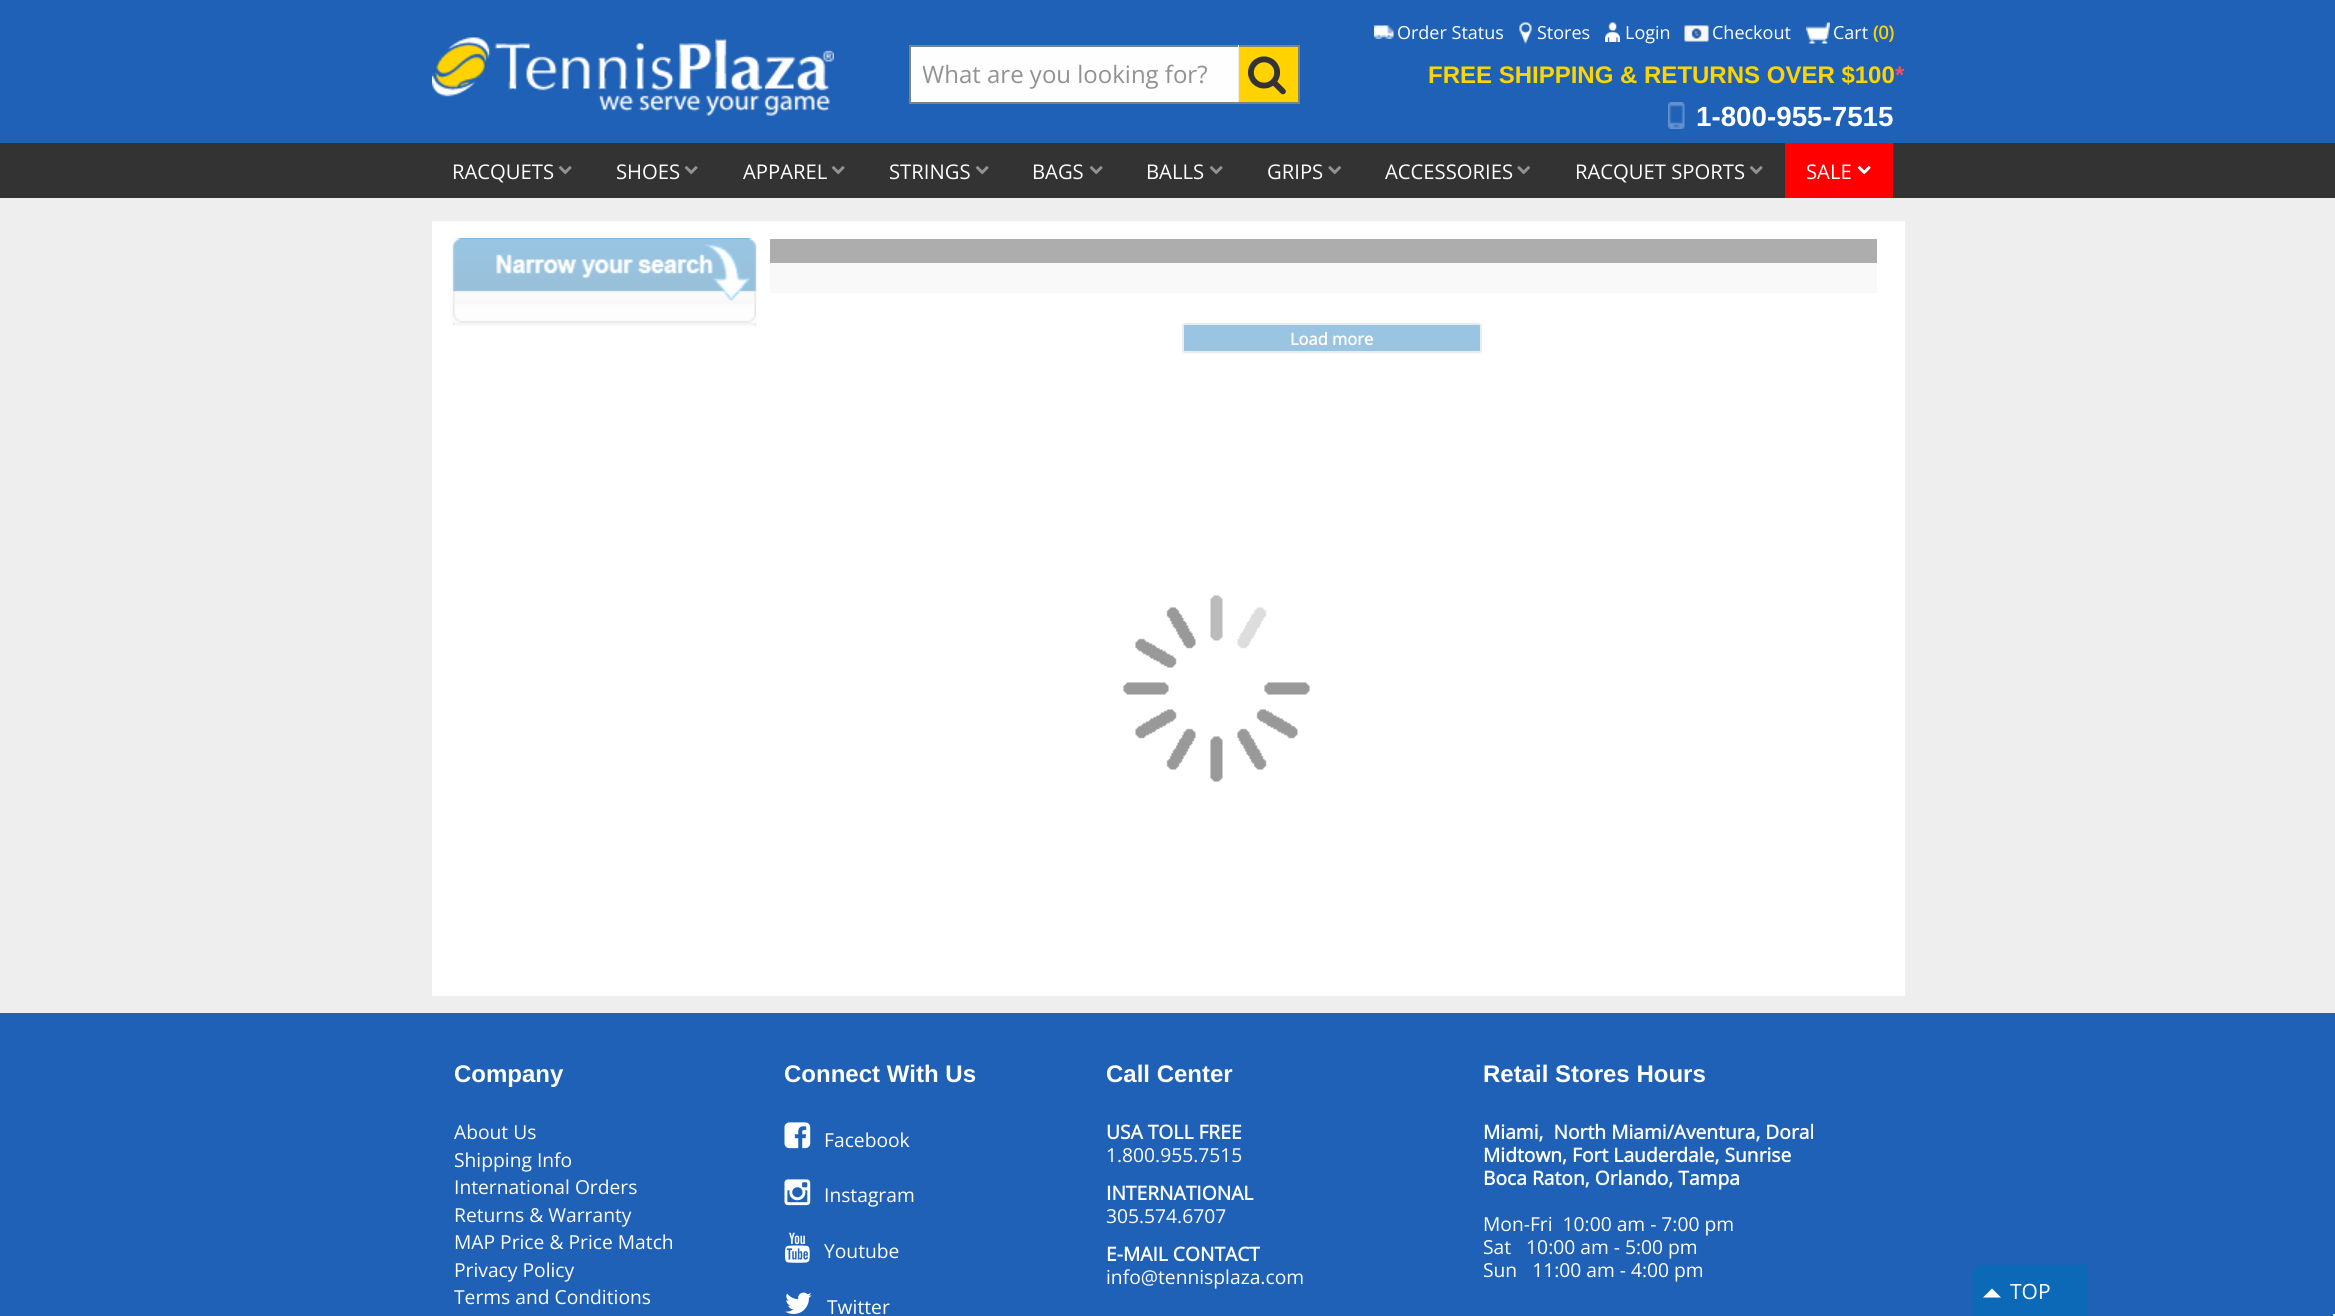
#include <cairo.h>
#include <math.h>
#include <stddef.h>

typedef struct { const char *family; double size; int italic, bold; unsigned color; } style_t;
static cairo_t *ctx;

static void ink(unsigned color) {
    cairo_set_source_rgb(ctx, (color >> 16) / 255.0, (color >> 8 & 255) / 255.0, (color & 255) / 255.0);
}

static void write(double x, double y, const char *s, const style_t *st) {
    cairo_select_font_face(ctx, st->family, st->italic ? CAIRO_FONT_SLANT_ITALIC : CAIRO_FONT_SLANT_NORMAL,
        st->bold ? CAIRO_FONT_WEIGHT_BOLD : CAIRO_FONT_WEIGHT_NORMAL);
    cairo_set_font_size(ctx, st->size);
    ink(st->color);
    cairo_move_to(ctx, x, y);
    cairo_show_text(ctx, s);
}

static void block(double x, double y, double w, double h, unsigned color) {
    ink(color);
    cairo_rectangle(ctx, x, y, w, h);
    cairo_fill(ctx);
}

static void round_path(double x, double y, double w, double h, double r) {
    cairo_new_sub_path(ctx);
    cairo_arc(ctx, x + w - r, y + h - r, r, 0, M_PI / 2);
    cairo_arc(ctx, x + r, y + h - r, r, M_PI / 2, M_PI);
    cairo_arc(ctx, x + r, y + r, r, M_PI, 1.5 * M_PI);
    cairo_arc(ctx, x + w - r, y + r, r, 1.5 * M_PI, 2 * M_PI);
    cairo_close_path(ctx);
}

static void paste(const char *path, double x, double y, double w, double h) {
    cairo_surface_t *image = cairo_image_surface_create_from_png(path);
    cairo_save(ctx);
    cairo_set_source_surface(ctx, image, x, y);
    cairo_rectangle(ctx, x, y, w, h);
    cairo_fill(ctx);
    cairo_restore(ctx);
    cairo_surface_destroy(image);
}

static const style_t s1 = {"Open Sans", 24, 0, 0, 0x929292};
static const style_t s2 = {"Open Sans", 18, 0, 0, 0xffffff};
static const style_t s3 = {"Open Sans", 18, 0, 1, 0xfed500};
static const style_t s4 = {"Liberation Sans", 24, 0, 1, 0xfed500};
static const style_t s5 = {"Liberation Sans", 24, 0, 1, 0xf0505c};
static const style_t s6 = {"Liberation Sans", 27.75, 0, 1, 0xffffff};
static const style_t s7 = {"Open Sans", 20.25, 0, 0, 0xffffff};
static const style_t s8 = {"Open Sans", 16.5, 0, 1, 0xffffff};
static const style_t s9 = {"Open Sans", 21, 0, 0, 0xffffff};
static const style_t s10 = {"Liberation Sans", 24, 0, 1, 0xffffff};
static const style_t s11 = {"Open Sans", 19.25, 0, 0, 0xffffff};
static const style_t s12 = {"Open Sans", 19.25, 0, 1, 0xffffff};

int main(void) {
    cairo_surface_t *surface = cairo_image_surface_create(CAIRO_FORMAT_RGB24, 2335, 1316);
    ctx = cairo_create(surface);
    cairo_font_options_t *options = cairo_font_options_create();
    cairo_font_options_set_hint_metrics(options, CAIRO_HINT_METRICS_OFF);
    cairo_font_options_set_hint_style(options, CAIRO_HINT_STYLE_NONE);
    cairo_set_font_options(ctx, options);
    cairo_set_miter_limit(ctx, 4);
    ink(0xeeeeee);
    cairo_paint(ctx);
    block(0, 0, 2335, 143, 0x1f61b6);
    paste("pic1.png", 432, 37, 402, 79);
    block(911, 47, 327, 55, 0xfefefe);
    block(909, 45, 390, 2, 0x7c8481);
    block(1238, 45, 1, 59, 0xeeeeee);
    block(909, 102, 330, 2, 0x7c8481);
    block(909, 45, 2, 59, 0x7c8481);
    cairo_save(ctx);
    cairo_rectangle(ctx, 923, 59, 303, 33);
    cairo_clip(ctx);
    write(922, 83, "What are you looking for?", &s1);
    cairo_restore(ctx);
    block(1239, 47, 59, 55, 0xffd200);
    block(1298, 45, 2, 59, 0x7c8481);
    block(1239, 102, 60, 2, 0x7c8481);
    paste("pic2.png", 1248, 56, 38, 39);
    paste("pic3.png", 1374, 25, 20, 14);
    write(1397, 39, "Order Status", &s2);
    paste("pic4.png", 1519, 22, 13, 22);
    write(1537, 39, "Stores", &s2);
    paste("pic5.png", 1605, 22, 15, 20);
    write(1625, 39, "Login", &s2);
    paste("pic6.png", 1684, 25, 25, 17);
    write(1712, 39, "Checkout", &s2);
    paste("pic7.png", 1806, 22, 24, 22);
    write(1833, 39, "Cart", &s2);
    write(1873, 39, "(0)", &s3);
    write(1428, 83, "FREE SHIPPING & RETURNS OVER $100", &s4);
    write(1895, 83, "*", &s5);
    paste("pic8.png", 1668, 102, 17, 27);
    write(1696, 126, "1-800-955-7515", &s6);
    block(0, 143, 2335, 55, 0x333333);
    write(452, 179, "RACQUETS", &s7);
    paste("pic9.png", 558, 166, 14, 9);
    write(616, 179, "SHOES", &s7);
    paste("pic9.png", 684, 166, 14, 9);
    write(743, 179, "APPAREL", &s7);
    paste("pic9.png", 831, 166, 14, 9);
    write(889, 179, "STRINGS", &s7);
    paste("pic9.png", 975, 166, 14, 9);
    write(1032, 179, "BAGS", &s7);
    paste("pic9.png", 1089, 166, 14, 9);
    write(1146, 179, "BALLS", &s7);
    paste("pic9.png", 1209, 166, 14, 9);
    write(1267, 179, "GRIPS", &s7);
    paste("pic10.png", 1328, 166, 14, 9);
    write(1385, 179, "ACCESSORIES", &s7);
    paste("pic10.png", 1517, 166, 14, 9);
    write(1575, 179, "RACQUET SPORTS", &s7);
    paste("pic9.png", 1749, 166, 14, 9);
    block(1785, 143, 108, 55, 0xff0000);
    write(1806, 179, "SALE", &s7);
    paste("pic11.png", 1857, 166, 14, 9);
    block(432, 221, 1473, 775, 0xffffff);
    paste("pic12.png", 450, 238, 307, 88);
    paste("pic13.png", 452, 304, 304, 19);
    block(770, 239, 1107, 24, 0xadadad);
    block(770, 263, 1107, 30, 0xf9f9f9);
    paste("pic14.png", 1123, 595, 187, 187);
    ink(0xfafafa);
    cairo_new_path(ctx);
    cairo_move_to(ctx, 1182, 350);
    cairo_curve_to(ctx, 1182, 352, 1182, 354, 1185, 354);
    cairo_line_to(ctx, 1479, 354);
    cairo_curve_to(ctx, 1482, 354, 1482, 352, 1482, 350);
    cairo_curve_to(ctx, 1482, 351, 1481, 352, 1479, 352);
    cairo_line_to(ctx, 1185, 352);
    cairo_curve_to(ctx, 1183, 352, 1182, 351, 1182, 350);
    cairo_close_path(ctx);
    cairo_fill(ctx);
    ink(0x99c5e3);
    round_path(1183, 324, 298, 28, 2);
    cairo_fill_preserve(ctx);
    ink(0xebebeb);
    cairo_stroke(ctx);
    write(1290, 345, "Load more", &s8);
    block(0, 1013, 2335, 303, 0x1f61b6);
    ink(0x0c69b8);
    cairo_new_path(ctx);
    cairo_move_to(ctx, 1981, 1265);
    cairo_line_to(ctx, 2088, 1265);
    cairo_line_to(ctx, 2088, 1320);
    cairo_line_to(ctx, 1981, 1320);
    cairo_curve_to(ctx, 1976.5, 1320, 1973, 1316.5, 1973, 1312);
    cairo_line_to(ctx, 1973, 1273);
    cairo_curve_to(ctx, 1973, 1268.5, 1976.5, 1265, 1981, 1265);
    cairo_close_path(ctx);
    cairo_fill(ctx);
    ink(0xffffff);
    cairo_new_path(ctx);
    cairo_move_to(ctx, 2001, 1297.5);
    cairo_line_to(ctx, 1983, 1297.5);
    cairo_line_to(ctx, 1992, 1288.5);
    cairo_close_path(ctx);
    cairo_fill(ctx);
    write(2010, 1299, "TOP", &s9);
    write(454, 1082, "Company", &s10);
    write(454, 1139, "About Us", &s11);
    write(454, 1167, "Shipping Info", &s11);
    write(454, 1194, "International Orders", &s11);
    write(454, 1222, "Returns & Warranty", &s11);
    write(454, 1249, "MAP Price & Price Match", &s11);
    write(454, 1277, "Privacy Policy", &s11);
    write(454, 1304, "Terms and Conditions", &s11);
    write(784, 1082, "Connect With Us", &s10);
    paste("pic15.png", 784, 1122, 27, 27);
    write(824, 1147, "Facebook", &s11);
    paste("pic16.png", 784, 1179, 27, 27);
    write(824, 1202, "Instagram", &s11);
    paste("pic17.png", 784, 1232, 26, 31);
    write(824, 1258, "Youtube", &s11);
    paste("pic18.png", 785, 1292, 27, 22);
    write(827, 1314, "Twitter", &s11);
    write(1106, 1082, "Call Center", &s10);
    write(1106, 1139, "USA TOLL FREE", &s12);
    write(1106, 1162, "1.800.955.7515", &s11);
    write(1106, 1200, "INTERNATIONAL", &s12);
    write(1106, 1223, "305.574.6707", &s11);
    write(1106, 1261, "E-MAIL CONTACT", &s12);
    write(1106, 1284, "info@tennisplaza.com", &s11);
    write(1483, 1082, "Retail Stores Hours", &s10);
    write(1483, 1139, "Miami,  North Miami/Aventura, Doral", &s12);
    write(1483, 1162, "Midtown, Fort Lauderdale, Sunrise", &s12);
    write(1483, 1185, "Boca Raton, Orlando, Tampa", &s12);
    write(1483, 1231, "Mon-Fri  10:00 am - 7:00 pm", &s11);
    write(1483, 1254, "Sat   10:00 am - 5:00 pm", &s11);
    write(1483, 1277, "Sun   11:00 am - 4:00 pm", &s11);
    block(2333, 1314, 2, 2, 0xf5f5f5);
    cairo_surface_write_to_png(surface, "screenshot.png");
    cairo_font_options_destroy(options);
    cairo_destroy(ctx);
    cairo_surface_destroy(surface);
    return 0;
}
